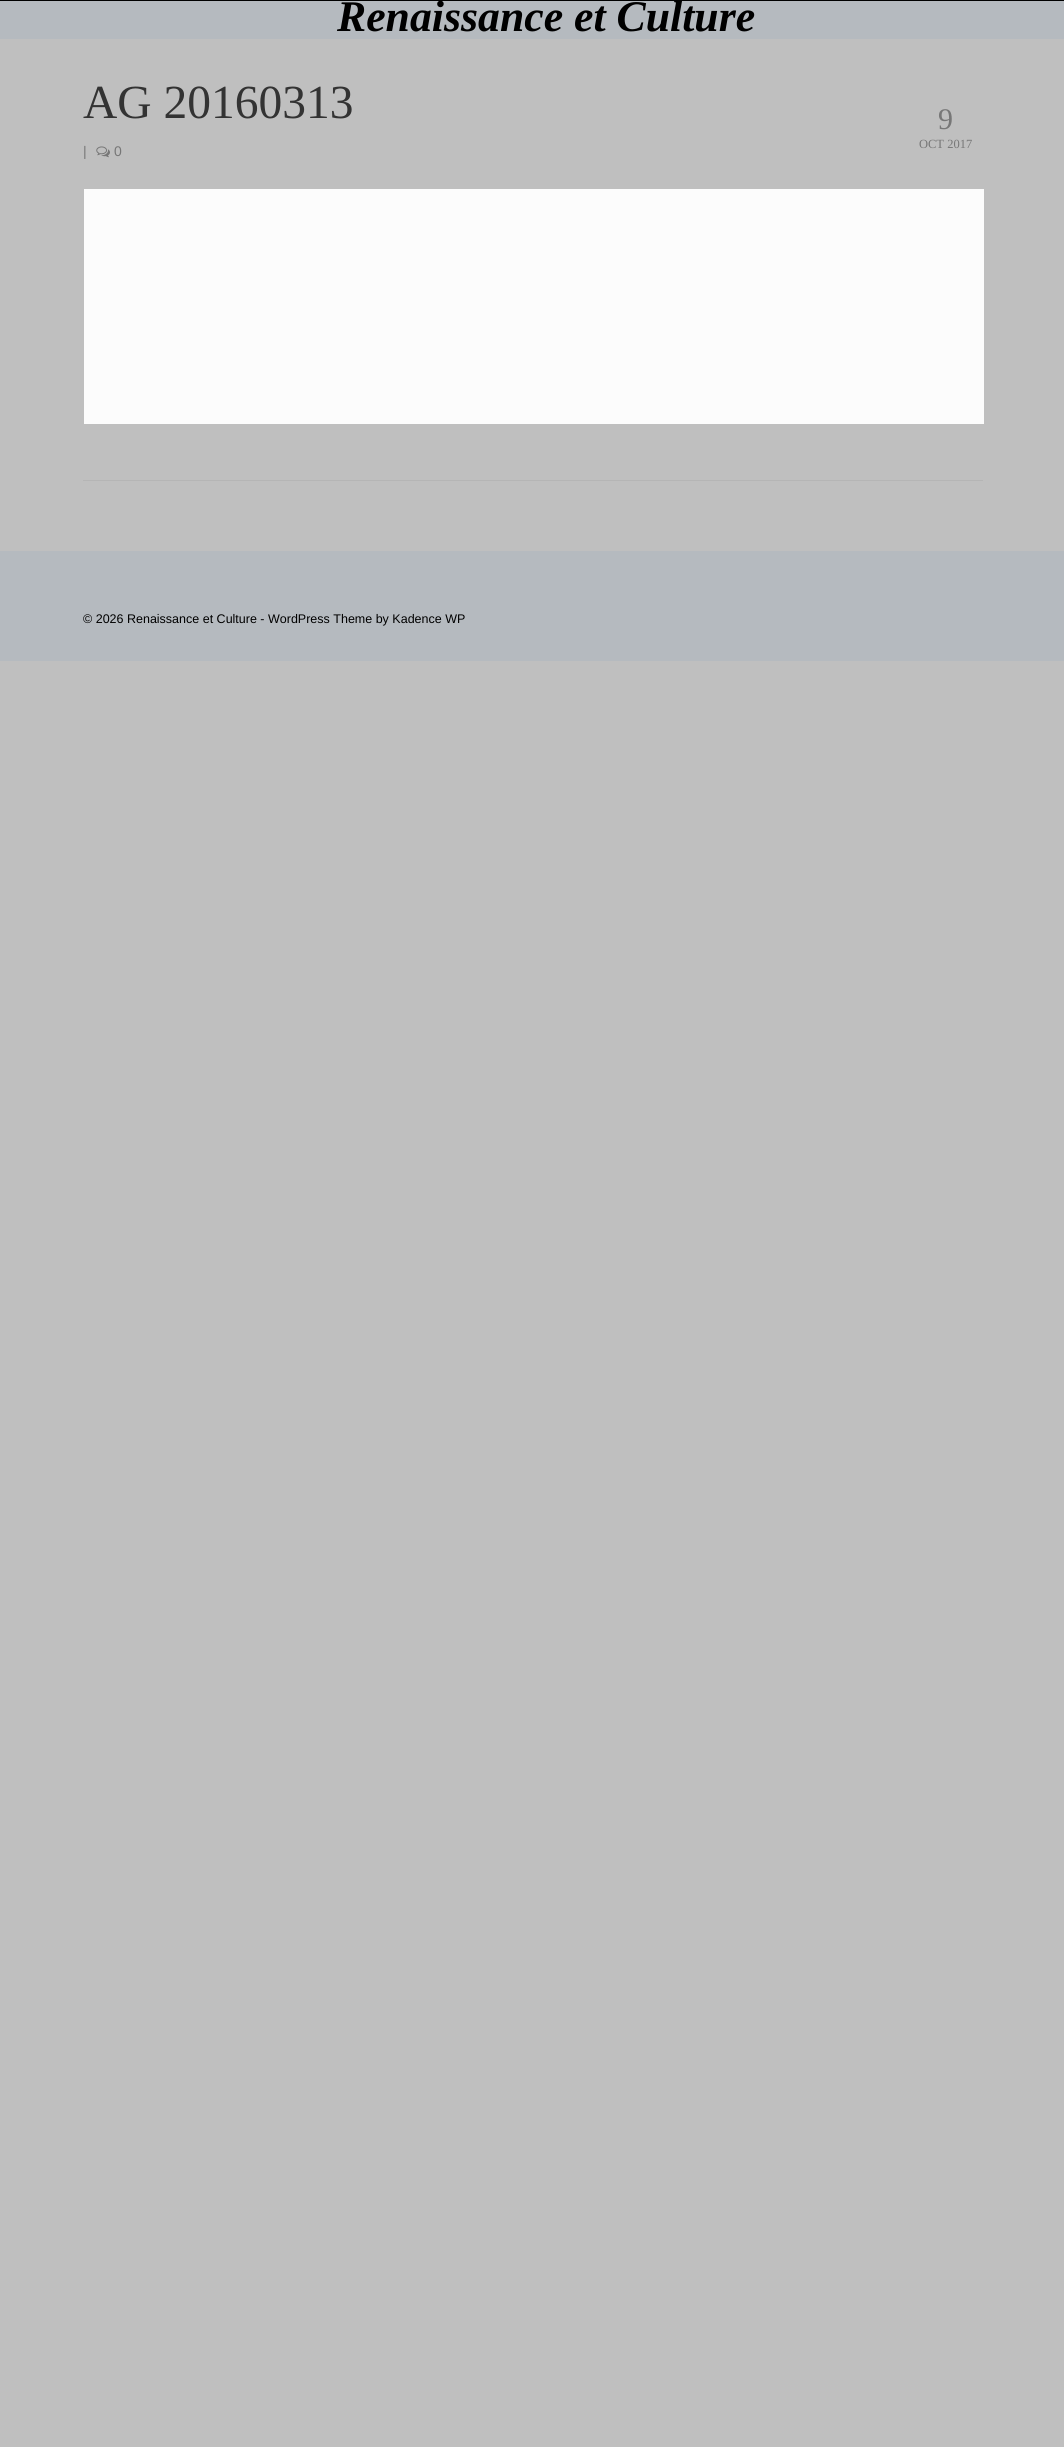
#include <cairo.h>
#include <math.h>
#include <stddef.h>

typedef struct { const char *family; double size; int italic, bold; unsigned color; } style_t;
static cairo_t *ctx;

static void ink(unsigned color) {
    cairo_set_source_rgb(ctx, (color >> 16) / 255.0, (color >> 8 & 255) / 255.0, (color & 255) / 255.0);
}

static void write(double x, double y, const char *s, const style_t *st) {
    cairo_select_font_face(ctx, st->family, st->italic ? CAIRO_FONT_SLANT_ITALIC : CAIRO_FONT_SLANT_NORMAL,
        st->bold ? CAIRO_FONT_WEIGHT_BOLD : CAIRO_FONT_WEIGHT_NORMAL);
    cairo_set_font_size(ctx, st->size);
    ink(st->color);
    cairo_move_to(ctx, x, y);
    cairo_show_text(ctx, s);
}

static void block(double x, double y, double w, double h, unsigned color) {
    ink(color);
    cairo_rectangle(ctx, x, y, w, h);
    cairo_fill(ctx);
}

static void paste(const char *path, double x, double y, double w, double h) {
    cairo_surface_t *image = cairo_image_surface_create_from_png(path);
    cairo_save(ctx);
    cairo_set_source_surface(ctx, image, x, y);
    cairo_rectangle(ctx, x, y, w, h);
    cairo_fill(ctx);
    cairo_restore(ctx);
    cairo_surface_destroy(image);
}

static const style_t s1 = {"Liberation Serif", 43.75, 1, 1, 0x000000};
static const style_t s2 = {"Liberation Serif", 47.5, 0, 0, 0x333333};
static const style_t s3 = {"Liberation Sans", 14, 0, 0, 0x777777};
static const style_t s4 = {"Liberation Serif", 30, 0, 0, 0x777777};
static const style_t s5 = {"Liberation Serif", 12.5, 0, 0, 0x777777};
static const style_t s6 = {"Liberation Sans", 12.5, 0, 0, 0x000000};

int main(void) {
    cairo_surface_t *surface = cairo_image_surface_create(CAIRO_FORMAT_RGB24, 1064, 2447);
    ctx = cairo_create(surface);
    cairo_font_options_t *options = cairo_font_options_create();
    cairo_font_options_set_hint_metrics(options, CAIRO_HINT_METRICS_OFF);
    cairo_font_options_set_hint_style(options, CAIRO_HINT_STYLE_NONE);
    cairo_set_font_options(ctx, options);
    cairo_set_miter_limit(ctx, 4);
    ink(0xbfbfbf);
    cairo_paint(ctx);
    block(0, 1, 1064, 38, 0xb5babf);
    block(0, 0, 1064, 1, 0x000000);
    write(337, 31, "Renaissance et Culture", &s1);
    write(83, 118, "AG 20160313", &s2);
    write(83, 156, "|", &s3);
    paste("pic1.png", 96, 146, 14, 12);
    write(114, 156, "0", &s3);
    write(938, 129, "9", &s4);
    write(919, 148, "OCT 2017", &s5);
    block(84, 189, 900, 235, 0xfcfcfc);
    block(83, 480, 900, 1, 0xb5b5b5);
    block(0, 551, 1064, 110, 0xb5babf);
    write(83, 623, "© 2026 Renaissance et Culture - WordPress Theme by Kadence WP", &s6);
    cairo_surface_write_to_png(surface, "screenshot.png");
    cairo_font_options_destroy(options);
    cairo_destroy(ctx);
    cairo_surface_destroy(surface);
    return 0;
}
